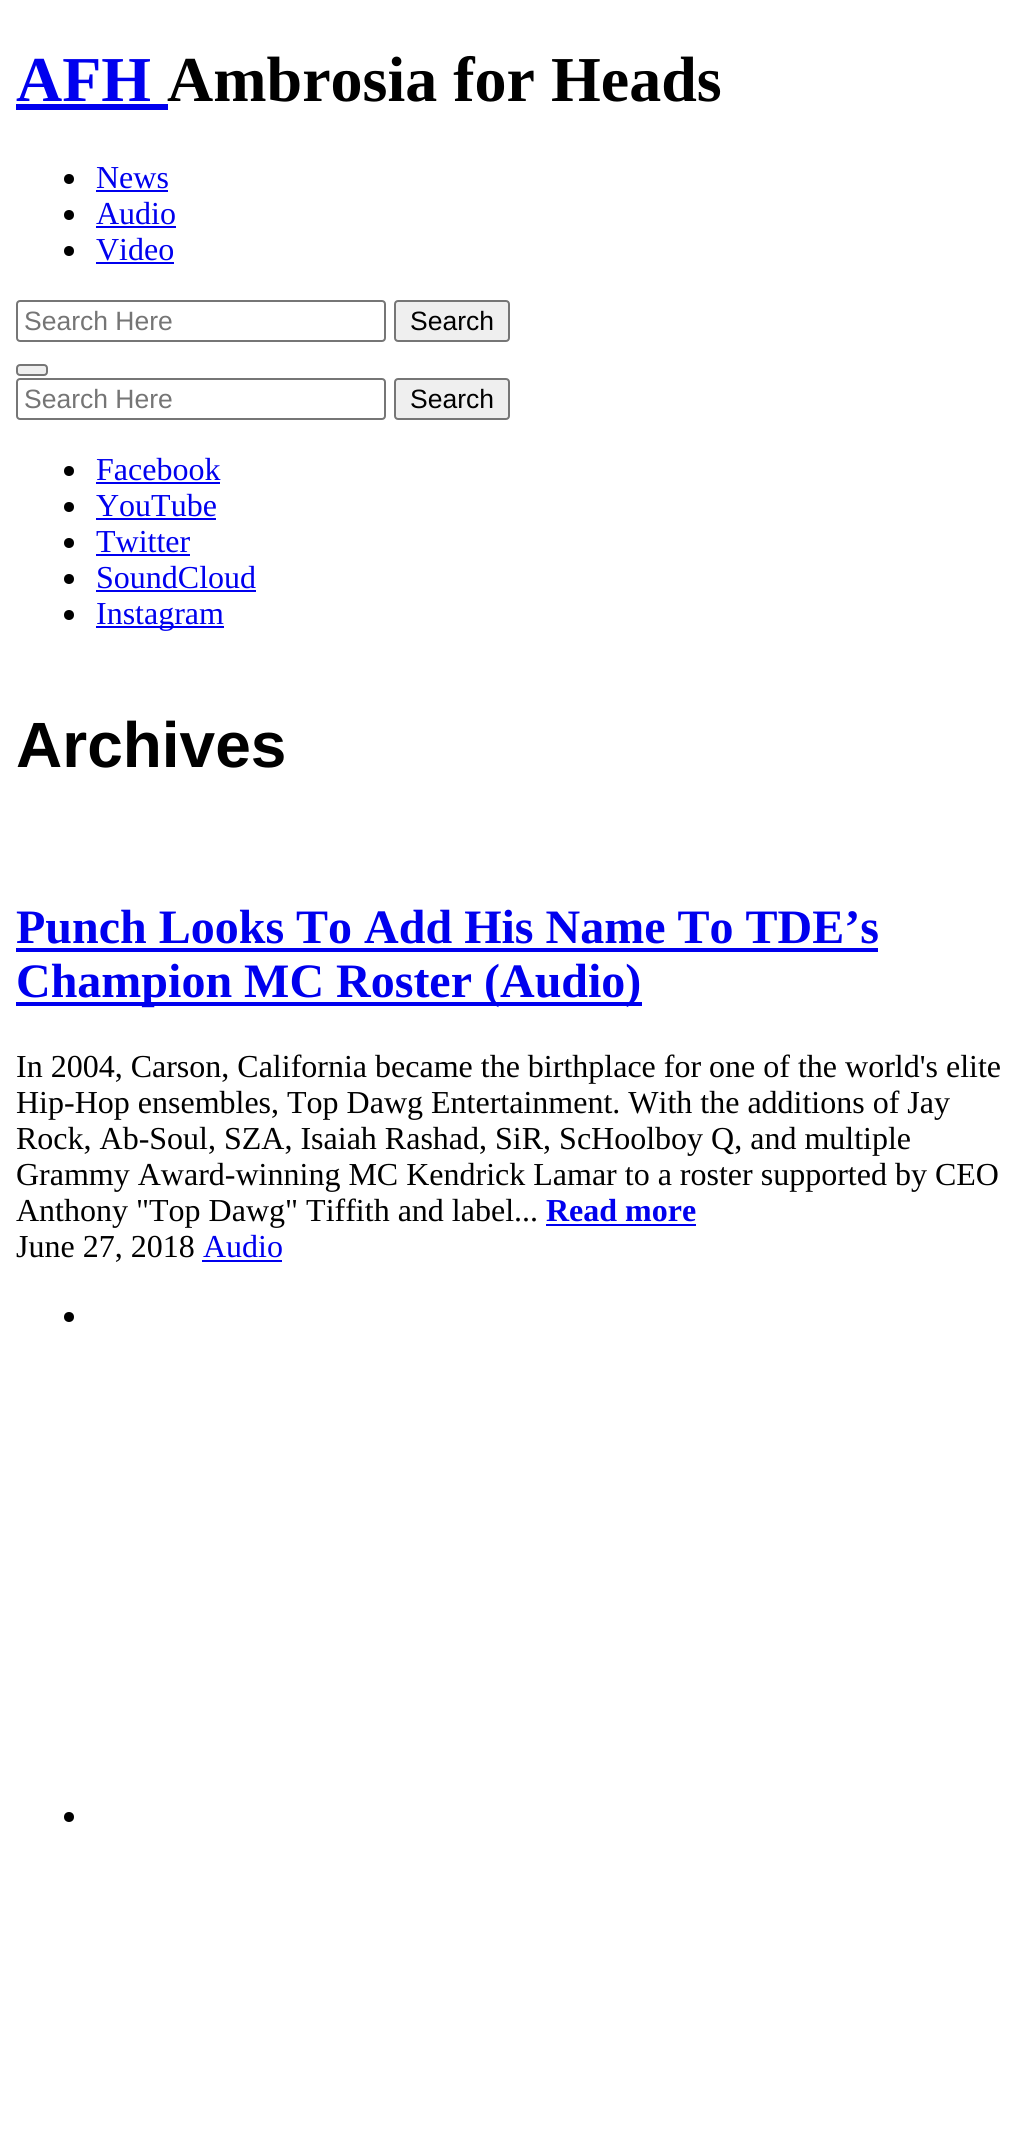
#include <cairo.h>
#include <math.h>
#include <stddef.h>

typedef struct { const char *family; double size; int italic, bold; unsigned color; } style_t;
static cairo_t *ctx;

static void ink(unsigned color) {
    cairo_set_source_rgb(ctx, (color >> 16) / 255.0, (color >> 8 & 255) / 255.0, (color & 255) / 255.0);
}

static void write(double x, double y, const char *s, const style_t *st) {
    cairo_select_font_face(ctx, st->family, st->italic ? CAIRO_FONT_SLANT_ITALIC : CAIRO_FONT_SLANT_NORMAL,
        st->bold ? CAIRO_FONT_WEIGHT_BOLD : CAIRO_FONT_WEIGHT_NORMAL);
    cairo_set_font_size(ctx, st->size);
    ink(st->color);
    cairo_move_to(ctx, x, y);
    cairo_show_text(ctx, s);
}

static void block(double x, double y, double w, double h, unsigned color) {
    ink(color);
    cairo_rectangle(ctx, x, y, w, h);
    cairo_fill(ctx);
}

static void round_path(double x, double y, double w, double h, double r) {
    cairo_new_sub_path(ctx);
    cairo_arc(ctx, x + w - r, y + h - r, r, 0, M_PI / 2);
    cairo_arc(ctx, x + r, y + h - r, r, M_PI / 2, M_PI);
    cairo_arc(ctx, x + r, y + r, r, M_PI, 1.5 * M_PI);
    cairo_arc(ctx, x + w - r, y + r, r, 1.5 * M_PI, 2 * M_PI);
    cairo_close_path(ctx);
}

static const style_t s1 = {"Liberation Serif", 64, 0, 1, 0x0000ee};
static const style_t s2 = {"Liberation Serif", 64, 0, 1, 0x000000};
static const style_t s3 = {"Liberation Serif", 32, 0, 0, 0x0000ee};
static const style_t s4 = {"Liberation Sans", 26.5, 0, 0, 0x757575};
static const style_t s5 = {"Liberation Sans", 26.5, 0, 0, 0x000000};
static const style_t s6 = {"Liberation Sans", 64, 0, 1, 0x000000};
static const style_t s7 = {"Liberation Serif", 48, 0, 1, 0x0000ee};
static const style_t s8 = {"Liberation Serif", 32, 0, 0, 0x000000};
static const style_t s9 = {"Liberation Serif", 32, 0, 1, 0x0000ee};

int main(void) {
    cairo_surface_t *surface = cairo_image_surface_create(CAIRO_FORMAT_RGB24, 1029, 2150);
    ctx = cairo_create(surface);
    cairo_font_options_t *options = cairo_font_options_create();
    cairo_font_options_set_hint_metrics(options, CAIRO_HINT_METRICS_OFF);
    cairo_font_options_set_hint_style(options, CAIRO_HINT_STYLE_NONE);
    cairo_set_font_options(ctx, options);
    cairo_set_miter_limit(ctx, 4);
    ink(0xffffff);
    cairo_paint(ctx);
    write(16, 101, "AFH", &s1);
    block(16, 104, 152, 6, 0x0000ee);
    write(167, 101, "Ambrosia for Heads", &s2);
    cairo_new_path(ctx);
    cairo_arc(ctx, 69, 179, 5, 0, 2 * M_PI);
    cairo_fill(ctx);
    write(96, 188, "News", &s3);
    block(96, 190, 72, 2, 0x0000ee);
    ink(0x000000);
    cairo_new_path(ctx);
    cairo_arc(ctx, 69, 215, 5, 0, 2 * M_PI);
    cairo_fill(ctx);
    write(96, 224, "Audio", &s3);
    block(96, 226, 80, 2, 0x0000ee);
    ink(0x000000);
    cairo_new_path(ctx);
    cairo_arc(ctx, 69, 251, 5, 0, 2 * M_PI);
    cairo_fill(ctx);
    write(96, 260, "Video", &s3);
    block(96, 262, 78, 2, 0x0000ee);
    round_path(17, 301, 368, 40, 3);
    ink(0x767676);
    cairo_stroke(ctx);
    write(24, 330, "Search Here", &s4);
    ink(0xefefef);
    round_path(395, 301, 114, 40, 3);
    cairo_fill_preserve(ctx);
    ink(0x767676);
    cairo_stroke(ctx);
    write(410, 330, "Search", &s5);
    ink(0xefefef);
    round_path(17, 365, 30, 10, 3);
    cairo_fill_preserve(ctx);
    ink(0x767676);
    cairo_stroke(ctx);
    round_path(17, 379, 368, 40, 3);
    cairo_stroke(ctx);
    write(24, 408, "Search Here", &s4);
    ink(0xefefef);
    round_path(395, 379, 114, 40, 3);
    cairo_fill_preserve(ctx);
    ink(0x767676);
    cairo_stroke(ctx);
    write(410, 408, "Search", &s5);
    cairo_new_path(ctx);
    cairo_arc(ctx, 69, 471, 5, 0, 2 * M_PI);
    cairo_fill(ctx);
    write(96, 480, "Facebook", &s3);
    block(96, 482, 124, 2, 0x0000ee);
    ink(0x000000);
    cairo_new_path(ctx);
    cairo_arc(ctx, 69, 507, 5, 0, 2 * M_PI);
    cairo_fill(ctx);
    write(96, 516, "YouTube", &s3);
    block(96, 518, 120, 2, 0x0000ee);
    ink(0x000000);
    cairo_new_path(ctx);
    cairo_arc(ctx, 69, 543, 5, 0, 2 * M_PI);
    cairo_fill(ctx);
    write(96, 552, "Twitter", &s3);
    block(96, 554, 94, 2, 0x0000ee);
    ink(0x000000);
    cairo_new_path(ctx);
    cairo_arc(ctx, 69, 579, 5, 0, 2 * M_PI);
    cairo_fill(ctx);
    write(96, 588, "SoundCloud", &s3);
    block(96, 590, 160, 2, 0x0000ee);
    ink(0x000000);
    cairo_new_path(ctx);
    cairo_arc(ctx, 69, 615, 5, 0, 2 * M_PI);
    cairo_fill(ctx);
    block(96, 626, 128, 2, 0x0000ee);
    write(96, 624, "Instagram", &s3);
    write(16, 767, "Archives", &s6);
    write(16, 943, "Punch Looks To Add His Name To TDE’s", &s7);
    block(16, 948, 862, 4, 0x0000ee);
    block(16, 1002, 626, 4, 0x0000ee);
    write(16, 997, "Champion MC Roster (Audio)", &s7);
    write(16, 1077, "In 2004, Carson, California became the birthplace for one of the world's elite", &s8);
    write(16, 1113, "Hip-Hop ensembles, Top Dawg Entertainment. With the additions of Jay", &s8);
    write(16, 1149, "Rock, Ab-Soul, SZA, Isaiah Rashad, SiR, ScHoolboy Q, and multiple", &s8);
    write(16, 1185, "Grammy Award-winning MC Kendrick Lamar to a roster supported by CEO", &s8);
    write(16, 1221, "Anthony \"Top Dawg\" Tiffith and label...", &s8);
    write(546, 1221, "Read more", &s9);
    block(546, 1224, 150, 2, 0x0000ee);
    write(16, 1257, "June 27, 2018", &s8);
    write(203, 1257, "Audio", &s3);
    block(202, 1260, 80, 2, 0x0000ee);
    ink(0x000000);
    cairo_new_path(ctx);
    cairo_arc(ctx, 69, 1317, 5, 0, 2 * M_PI);
    cairo_fill(ctx);
    cairo_arc(ctx, 69, 1817, 5, 0, 2 * M_PI);
    cairo_fill(ctx);
    cairo_surface_write_to_png(surface, "screenshot.png");
    cairo_font_options_destroy(options);
    cairo_destroy(ctx);
    cairo_surface_destroy(surface);
    return 0;
}
